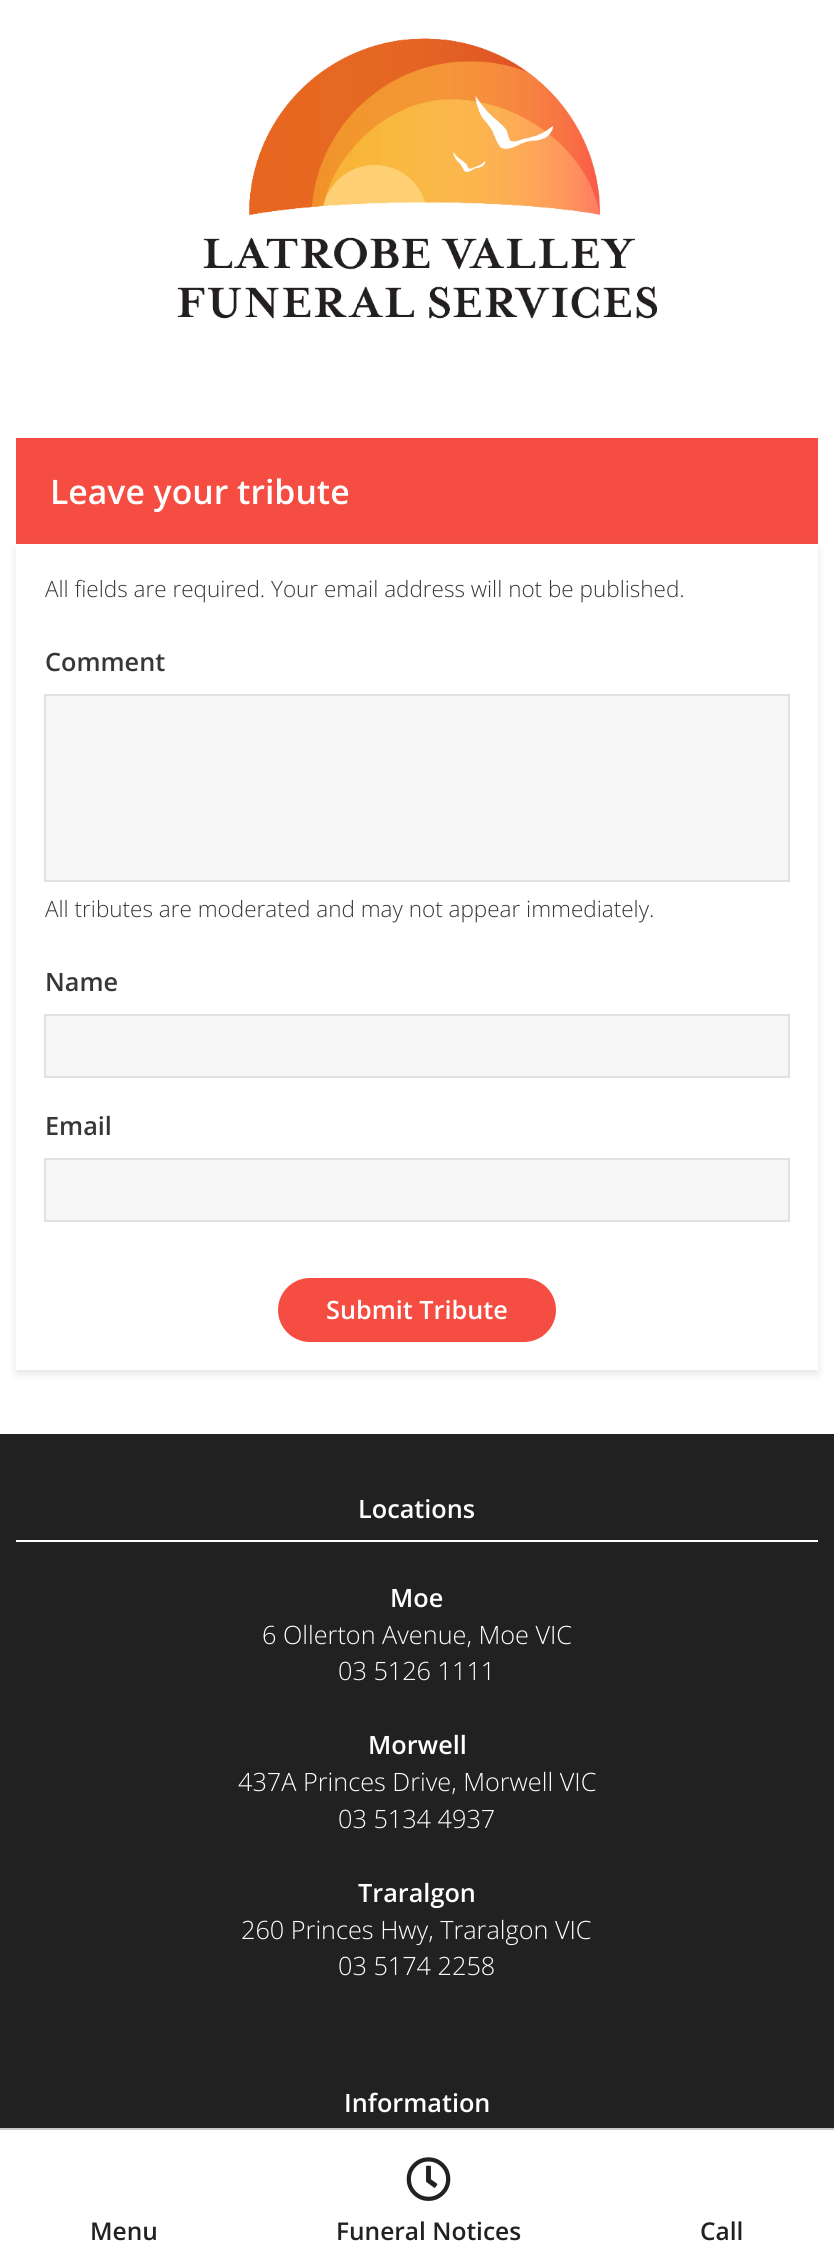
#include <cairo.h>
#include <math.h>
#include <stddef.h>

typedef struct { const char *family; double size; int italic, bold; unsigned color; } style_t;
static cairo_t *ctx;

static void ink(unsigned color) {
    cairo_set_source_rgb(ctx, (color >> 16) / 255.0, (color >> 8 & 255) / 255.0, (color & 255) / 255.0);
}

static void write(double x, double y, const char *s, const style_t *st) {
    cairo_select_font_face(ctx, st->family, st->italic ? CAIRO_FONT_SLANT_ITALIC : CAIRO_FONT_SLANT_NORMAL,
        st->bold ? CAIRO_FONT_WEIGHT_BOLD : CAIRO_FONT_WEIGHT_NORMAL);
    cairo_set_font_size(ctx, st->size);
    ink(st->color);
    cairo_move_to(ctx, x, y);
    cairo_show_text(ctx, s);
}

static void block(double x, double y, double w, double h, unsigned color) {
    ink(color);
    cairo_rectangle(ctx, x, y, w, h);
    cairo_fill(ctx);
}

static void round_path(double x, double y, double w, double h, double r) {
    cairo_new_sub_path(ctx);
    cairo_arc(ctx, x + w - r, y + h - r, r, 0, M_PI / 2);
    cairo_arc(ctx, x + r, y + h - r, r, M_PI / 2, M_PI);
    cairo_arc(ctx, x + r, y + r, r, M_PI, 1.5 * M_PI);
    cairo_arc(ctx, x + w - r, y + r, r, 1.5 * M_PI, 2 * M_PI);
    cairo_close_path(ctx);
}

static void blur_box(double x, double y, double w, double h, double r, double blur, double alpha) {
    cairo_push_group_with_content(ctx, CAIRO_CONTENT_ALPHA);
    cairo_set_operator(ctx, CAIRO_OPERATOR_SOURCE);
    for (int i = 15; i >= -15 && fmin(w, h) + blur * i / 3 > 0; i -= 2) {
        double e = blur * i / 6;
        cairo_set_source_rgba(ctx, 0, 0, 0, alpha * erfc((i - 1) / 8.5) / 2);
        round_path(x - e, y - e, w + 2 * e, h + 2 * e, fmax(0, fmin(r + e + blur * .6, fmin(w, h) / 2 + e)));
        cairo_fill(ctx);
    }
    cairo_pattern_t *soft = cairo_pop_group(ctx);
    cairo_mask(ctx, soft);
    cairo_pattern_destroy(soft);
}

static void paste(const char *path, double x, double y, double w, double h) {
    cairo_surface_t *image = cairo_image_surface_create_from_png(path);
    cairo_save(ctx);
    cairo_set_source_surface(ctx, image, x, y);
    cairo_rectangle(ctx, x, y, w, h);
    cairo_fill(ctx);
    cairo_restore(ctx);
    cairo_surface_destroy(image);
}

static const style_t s1 = {"Open Sans SemiBold", 33.75, 0, 0, 0xffffff};
static const style_t s2 = {"Open Sans Light", 22.5, 0, 0, 0x373737};
static const style_t s3 = {"Open Sans SemiBold", 25.25, 0, 0, 0x373737};
static const style_t s4 = {"Open Sans SemiBold", 25.25, 0, 0, 0xffffff};
static const style_t s5 = {"Open Sans Light", 25.25, 0, 0, 0xffffff};
static const style_t s6 = {"Open Sans SemiBold", 24.5, 0, 0, 0x212121};

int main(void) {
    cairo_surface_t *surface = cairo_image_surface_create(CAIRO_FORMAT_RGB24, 834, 2268);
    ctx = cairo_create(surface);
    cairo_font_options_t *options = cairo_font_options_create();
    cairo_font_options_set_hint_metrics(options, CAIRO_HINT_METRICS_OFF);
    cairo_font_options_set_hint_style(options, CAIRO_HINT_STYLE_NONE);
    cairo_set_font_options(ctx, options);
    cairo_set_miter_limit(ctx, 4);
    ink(0xffffff);
    cairo_paint(ctx);
    paste("pic1.png", 177, 38, 481, 281);
    block(16, 438, 802, 106, 0xf54d42);
    write(50, 504, "Leave your tribute", &s1);
    cairo_save(ctx);
    cairo_set_fill_rule(ctx, CAIRO_FILL_RULE_EVEN_ODD);
    cairo_new_path(ctx);
    cairo_move_to(ctx, 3, 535);
    cairo_line_to(ctx, 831, 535);
    cairo_line_to(ctx, 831, 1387);
    cairo_line_to(ctx, 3, 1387);
    cairo_close_path(ctx);
    cairo_move_to(ctx, 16, 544);
    cairo_line_to(ctx, 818, 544);
    cairo_line_to(ctx, 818, 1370);
    cairo_line_to(ctx, 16, 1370);
    cairo_close_path(ctx);
    cairo_clip(ctx);
    ink(0x000000);
    blur_box(16, 548, 802, 826, 0, 4, 0.1);
    cairo_restore(ctx);
    write(45, 597, "All fields are required. Your email address will not be published.", &s2);
    write(45, 671, "Comment", &s3);
    ink(0xf6f6f6);
    cairo_rectangle(ctx, 45, 695, 744, 186);
    cairo_fill_preserve(ctx);
    ink(0xe1e1e1);
    cairo_stroke(ctx);
    write(45, 917, "All tributes are moderated and may not appear immediately.", &s2);
    write(45, 991, "Name", &s3);
    ink(0xf6f6f6);
    cairo_rectangle(ctx, 45, 1015, 744, 62);
    cairo_fill_preserve(ctx);
    ink(0xe1e1e1);
    cairo_stroke(ctx);
    write(45, 1135, "Email", &s3);
    ink(0xf6f6f6);
    cairo_rectangle(ctx, 45, 1159, 744, 62);
    cairo_fill_preserve(ctx);
    ink(0xe1e1e1);
    cairo_stroke(ctx);
    ink(0xf54d42);
    round_path(278, 1278, 278, 64, 32);
    cairo_fill(ctx);
    write(326, 1319, "Submit Tribute", &s4);
    block(0, 1434, 834, 694, 0x212121);
    block(16, 1540, 802, 2, 0xffffff);
    write(358, 1518, "Locations", &s4);
    write(390, 1607, "Moe", &s4);
    write(262, 1644, "6 Ollerton Avenue, Moe VIC", &s5);
    write(338, 1680, "03 5126 1111", &s5);
    write(368, 1754, "Morwell", &s4);
    write(238, 1791, "437A Princes Drive, Morwell VIC", &s5);
    write(338, 1828, "03 5134 4937", &s5);
    write(358, 1902, "Traralgon", &s4);
    write(241, 1939, "260 Princes Hwy, Traralgon VIC", &s5);
    write(338, 1975, "03 5174 2258", &s5);
    write(344, 2112, "Information", &s4);
    block(0, 2128, 834, 2, 0xc8c8c8);
    write(90, 2240, "Menu", &s6);
    paste("pic2.png", 406, 2157, 45, 44);
    write(336, 2240, "Funeral Notices", &s6);
    write(700, 2240, "Call", &s6);
    cairo_surface_write_to_png(surface, "screenshot.png");
    cairo_font_options_destroy(options);
    cairo_destroy(ctx);
    cairo_surface_destroy(surface);
    return 0;
}
